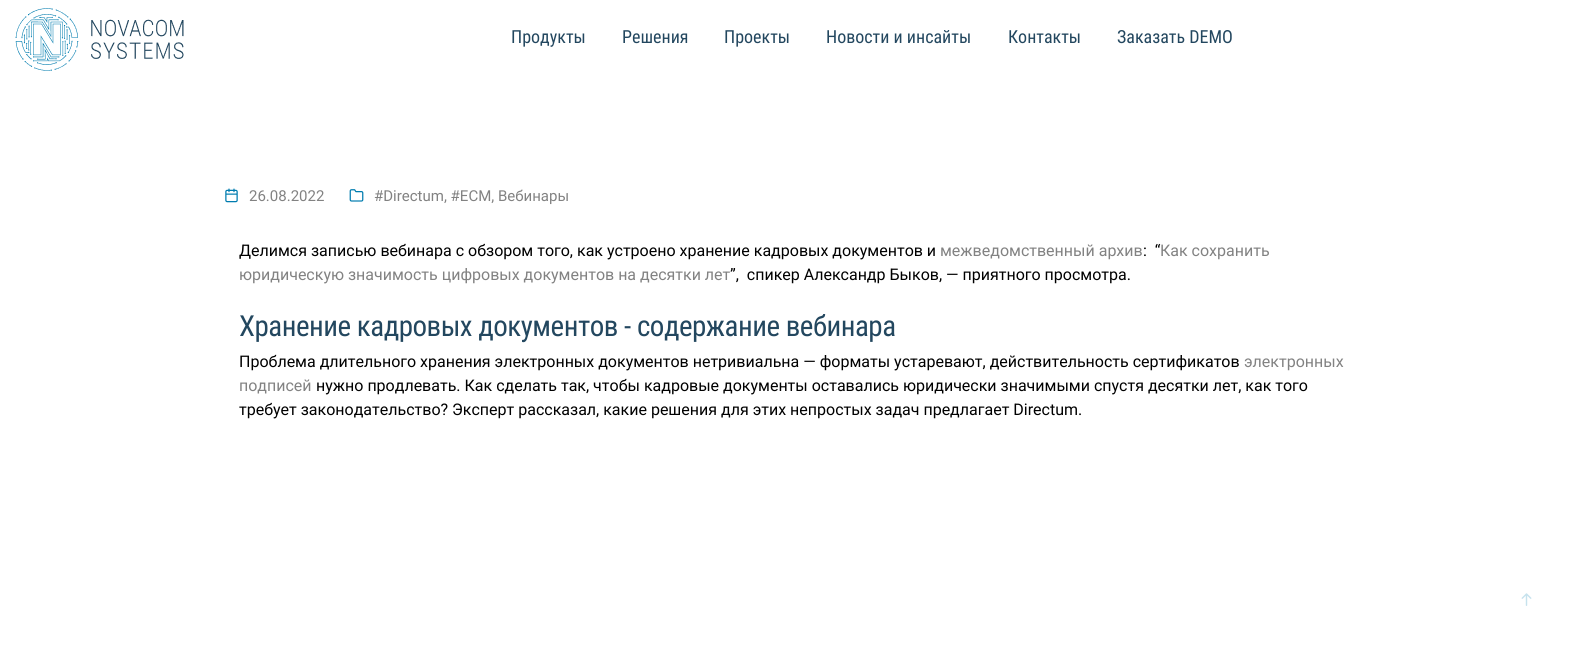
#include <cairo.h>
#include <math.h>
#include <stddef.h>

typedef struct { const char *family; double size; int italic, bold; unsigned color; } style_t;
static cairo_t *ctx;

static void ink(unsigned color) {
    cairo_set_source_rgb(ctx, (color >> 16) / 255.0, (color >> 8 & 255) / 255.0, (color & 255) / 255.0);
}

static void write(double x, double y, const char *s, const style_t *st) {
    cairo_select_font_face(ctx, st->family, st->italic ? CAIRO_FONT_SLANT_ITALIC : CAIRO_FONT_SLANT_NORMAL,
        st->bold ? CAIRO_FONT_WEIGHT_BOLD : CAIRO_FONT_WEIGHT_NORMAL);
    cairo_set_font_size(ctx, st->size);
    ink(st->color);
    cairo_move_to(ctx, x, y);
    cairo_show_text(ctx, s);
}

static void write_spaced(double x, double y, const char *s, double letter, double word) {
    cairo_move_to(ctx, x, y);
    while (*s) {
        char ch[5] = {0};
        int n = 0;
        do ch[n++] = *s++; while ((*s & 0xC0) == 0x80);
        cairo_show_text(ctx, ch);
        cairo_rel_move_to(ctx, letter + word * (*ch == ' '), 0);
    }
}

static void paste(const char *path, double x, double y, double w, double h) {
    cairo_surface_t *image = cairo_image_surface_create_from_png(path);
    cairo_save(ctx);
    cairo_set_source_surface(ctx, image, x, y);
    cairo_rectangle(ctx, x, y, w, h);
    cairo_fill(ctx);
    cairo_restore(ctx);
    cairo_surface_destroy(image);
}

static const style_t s1 = {"Roboto Condensed", 18, 0, 0, 0x23475f};
static const style_t s2 = {"Roboto", 15, 0, 0, 0x828282};
static const style_t s3 = {"Roboto", 16, 0, 0, 0x000000};
static const style_t s4 = {"Roboto", 16, 0, 0, 0x828282};

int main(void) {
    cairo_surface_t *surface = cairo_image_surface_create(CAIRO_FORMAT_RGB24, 1588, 662);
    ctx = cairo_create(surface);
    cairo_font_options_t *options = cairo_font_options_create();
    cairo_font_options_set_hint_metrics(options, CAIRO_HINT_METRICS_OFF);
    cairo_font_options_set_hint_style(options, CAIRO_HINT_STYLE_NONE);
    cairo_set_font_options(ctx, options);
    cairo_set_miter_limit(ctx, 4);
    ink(0xffffff);
    cairo_paint(ctx);
    paste("pic1.png", 15, 8, 169, 63);
    write(511, 43, "Продукты", &s1);
    write(622, 43, "Решения", &s1);
    write(724, 43, "Проекты", &s1);
    write(826, 43, "Новости и инсайты", &s1);
    write(1008, 43, "Контакты", &s1);
    write(1117, 43, "Заказать DEMO", &s1);
    paste("pic2.png", 225, 188, 13, 15);
    write(249, 201, "26.08.2022", &s2);
    paste("pic3.png", 349, 189, 15, 13);
    write(374, 201, "#Directum, #ECM, Вебинары", &s2);
    write(239, 256, "Делимся записью вебинара с обзором того, как устроено хранение кадровых документов и", &s3);
    write(940, 256, "межведомственный архив", &s4);
    write(1143, 256, ":  “", &s3);
    write(1160, 256, "Как сохранить", &s4);
    write(239, 280, "юридическую значимость цифровых документов на десятки лет", &s4);
    write(730, 280, "”,  спикер Александр Быков, — приятного просмотра.", &s3);
    cairo_select_font_face(ctx, "Roboto Condensed", CAIRO_FONT_SLANT_NORMAL, CAIRO_FONT_WEIGHT_NORMAL);
    cairo_set_font_size(ctx, 29);
    ink(0x23475f);
    write_spaced(239, 336, "Хранение кадровых документов - содержание вебинара", -0.5, 0);
    write(239, 367, "Проблема длительного хранения электронных документов нетривиальна — форматы устаревают, действительность сертификатов", &s3);
    write(1244, 367, "электронных", &s4);
    write(239, 391, "подписей", &s4);
    write(316, 391, "нужно продлевать. Как сделать так, чтобы кадровые документы оставались юридически значимыми спустя десятки лет, как того", &s3);
    write(239, 415, "требует законодательство? Эксперт рассказал, какие решения для этих непростых задач предлагает Directum.", &s3);
    paste("pic4.png", 1521, 593, 11, 13);
    cairo_surface_write_to_png(surface, "screenshot.png");
    cairo_font_options_destroy(options);
    cairo_destroy(ctx);
    cairo_surface_destroy(surface);
    return 0;
}
